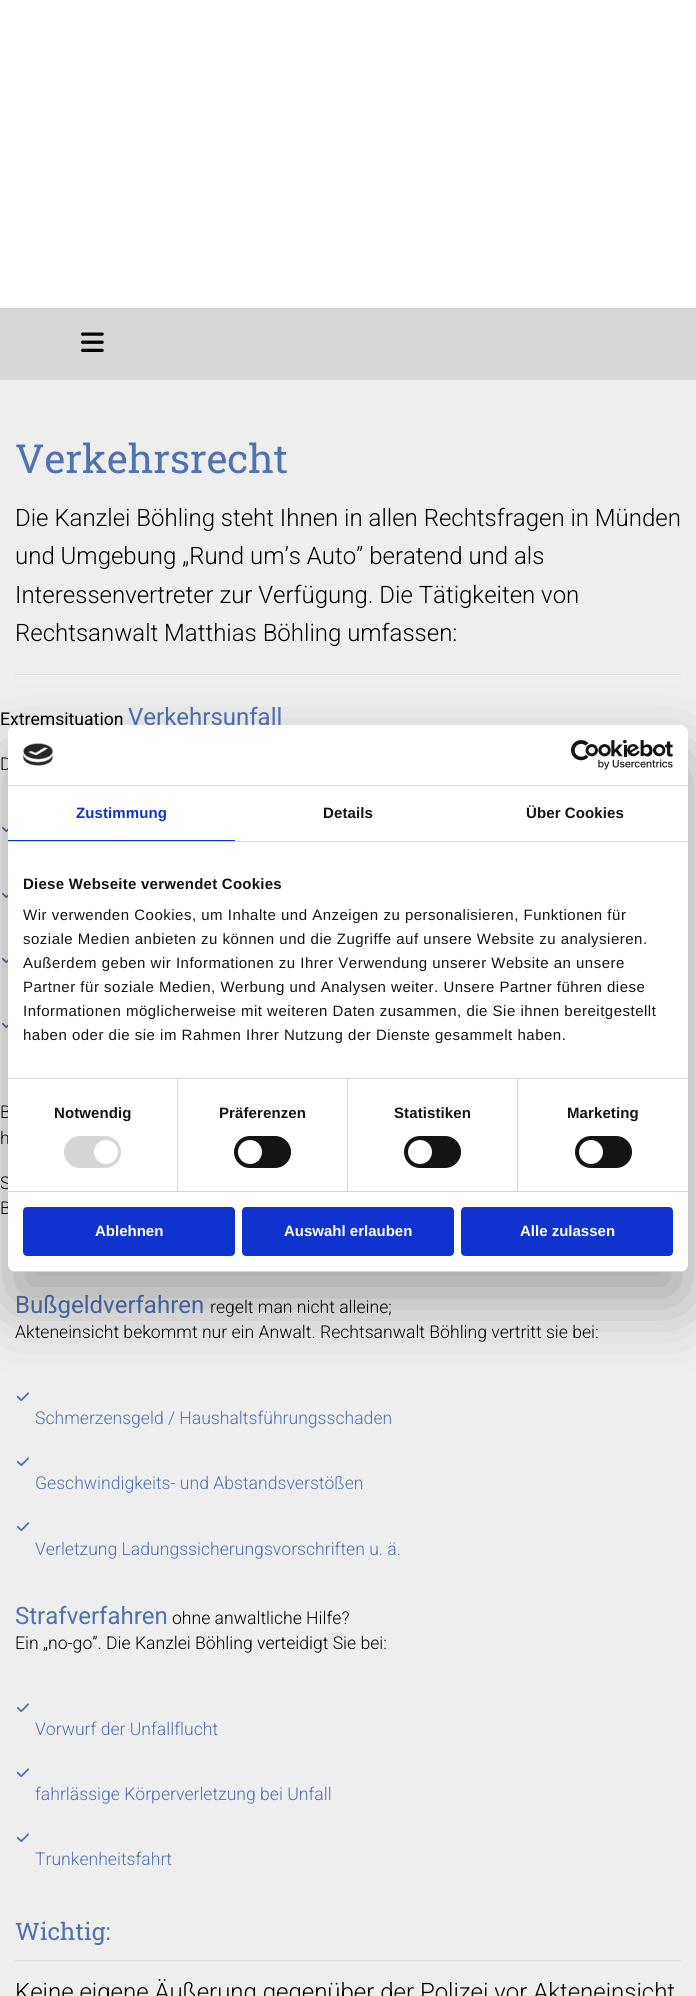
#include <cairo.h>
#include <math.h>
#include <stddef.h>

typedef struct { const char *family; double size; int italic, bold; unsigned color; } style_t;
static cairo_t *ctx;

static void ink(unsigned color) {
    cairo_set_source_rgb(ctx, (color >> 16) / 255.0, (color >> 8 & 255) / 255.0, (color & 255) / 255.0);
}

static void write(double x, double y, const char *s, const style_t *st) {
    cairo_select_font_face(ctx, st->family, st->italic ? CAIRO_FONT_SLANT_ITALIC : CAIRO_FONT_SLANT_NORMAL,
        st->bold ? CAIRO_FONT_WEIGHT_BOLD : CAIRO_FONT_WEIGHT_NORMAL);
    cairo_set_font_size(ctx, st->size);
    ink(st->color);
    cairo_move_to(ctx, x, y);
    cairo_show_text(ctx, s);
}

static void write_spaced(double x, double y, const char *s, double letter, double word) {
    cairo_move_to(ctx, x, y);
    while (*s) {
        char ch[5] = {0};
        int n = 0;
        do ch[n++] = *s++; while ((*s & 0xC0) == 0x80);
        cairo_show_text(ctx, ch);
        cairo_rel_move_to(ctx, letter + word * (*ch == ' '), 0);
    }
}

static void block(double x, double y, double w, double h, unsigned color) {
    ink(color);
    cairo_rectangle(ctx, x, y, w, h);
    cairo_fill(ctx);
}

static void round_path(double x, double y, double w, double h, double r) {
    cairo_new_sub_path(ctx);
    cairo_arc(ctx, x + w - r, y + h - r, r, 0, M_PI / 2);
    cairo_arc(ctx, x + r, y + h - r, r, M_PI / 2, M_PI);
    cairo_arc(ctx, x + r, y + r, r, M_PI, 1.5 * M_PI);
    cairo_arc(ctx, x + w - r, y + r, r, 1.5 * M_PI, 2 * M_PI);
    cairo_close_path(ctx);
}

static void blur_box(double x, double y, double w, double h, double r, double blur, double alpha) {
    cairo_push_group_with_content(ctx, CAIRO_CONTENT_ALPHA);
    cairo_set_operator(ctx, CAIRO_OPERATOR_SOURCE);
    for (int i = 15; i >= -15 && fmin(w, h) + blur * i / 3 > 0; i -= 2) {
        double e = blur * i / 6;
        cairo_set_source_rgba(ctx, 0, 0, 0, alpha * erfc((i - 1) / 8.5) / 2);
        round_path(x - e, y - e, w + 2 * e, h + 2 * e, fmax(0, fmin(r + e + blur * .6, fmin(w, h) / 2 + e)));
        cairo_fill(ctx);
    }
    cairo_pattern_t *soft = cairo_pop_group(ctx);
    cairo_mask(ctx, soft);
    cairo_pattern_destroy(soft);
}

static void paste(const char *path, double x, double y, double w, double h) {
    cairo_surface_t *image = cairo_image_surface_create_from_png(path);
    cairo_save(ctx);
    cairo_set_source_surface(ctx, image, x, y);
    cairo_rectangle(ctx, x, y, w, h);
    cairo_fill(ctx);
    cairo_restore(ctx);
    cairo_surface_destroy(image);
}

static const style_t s1 = {"Roboto Slab", 40, 0, 0, 0x5171af};
static const style_t s2 = {"Roboto Light", 24, 0, 0, 0x000000};
static const style_t s3 = {"Roboto", 17.6, 0, 0, 0x000000};
static const style_t s4 = {"Roboto", 24, 0, 0, 0x5171af};
static const style_t s5 = {"Roboto Light", 17.6, 0, 0, 0x000000};
static const style_t s6 = {"Roboto Light", 17.6, 0, 0, 0x5171af};
static const style_t s7 = {"Roboto Slab", 24, 0, 0, 0x5171af};
static const style_t s8 = {"Liberation Sans", 15, 0, 1, 0xffffff};

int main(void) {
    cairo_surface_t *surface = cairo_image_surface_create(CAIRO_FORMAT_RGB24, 696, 1996);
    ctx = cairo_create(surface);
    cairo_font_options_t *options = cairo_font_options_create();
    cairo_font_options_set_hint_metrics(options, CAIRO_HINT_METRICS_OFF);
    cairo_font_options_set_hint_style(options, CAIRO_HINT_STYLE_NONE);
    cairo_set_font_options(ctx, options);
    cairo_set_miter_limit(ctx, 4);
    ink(0xeeeeee);
    cairo_paint(ctx);
    block(0, 0, 696, 308, 0xffffff);
    block(0, 309, 696, 71, 0xd6d8d7);
    block(0, 308, 696, 1, 0xcccccc);
    paste("pic1.png", 81, 332, 23, 20);
    write(15, 473, "Verkehrsrecht", &s1);
    write(15, 526, "Die Kanzlei Böhling steht Ihnen in allen Rechtsfragen in Münden", &s2);
    write(15, 564, "und Umgebung „Rund um’s Auto” beratend und als", &s2);
    write(15, 603, "Interessenvertreter zur Verfügung. Die Tätigkeiten von", &s2);
    write(15, 641, "Rechtsanwalt Matthias Böhling umfassen:", &s2);
    block(15, 674, 666, 1, 0xdddddd);
    write(0, 725, "Extremsituation", &s3);
    write(128, 725, "Verkehrsunfall", &s4);
    write(0, 770, "D", &s5);
    paste("pic2.png", 1, 826, 7, 7);
    paste("pic2.png", 1, 892, 7, 7);
    paste("pic2.png", 1, 957, 7, 7);
    paste("pic2.png", 1, 1022, 7, 7);
    write(0, 1118, "B", &s5);
    write(0, 1144, "h", &s5);
    write(0, 1189, "S", &s5);
    write(0, 1214, "B", &s5);
    write(15, 1313, "Bußgeldverfahren", &s4);
    write(210, 1313, "regelt man nicht alleine;", &s5);
    write(15, 1338, "Akteneinsicht bekommt nur ein Anwalt. Rechtsanwalt Böhling vertritt sie bei:", &s5);
    paste("pic3.png", 16, 1392, 14, 10);
    write(35, 1424, "Schmerzensgeld / Haushaltsführungsschaden", &s6);
    paste("pic3.png", 16, 1457, 14, 10);
    write(35, 1489, "Geschwindigkeits- und Abstandsverstößen", &s6);
    paste("pic3.png", 16, 1522, 14, 10);
    write(35, 1555, "Verletzung Ladungssicherungsvorschriften u. ä.", &s6);
    write(15, 1624, "Strafverfahren", &s4);
    write(172, 1624, "ohne anwaltliche Hilfe?", &s5);
    write(15, 1649, "Ein „no-go”. Die Kanzlei Böhling verteidigt Sie bei:", &s5);
    paste("pic3.png", 16, 1703, 14, 10);
    write(35, 1735, "Vorwurf der Unfallflucht", &s6);
    paste("pic3.png", 16, 1768, 14, 10);
    write(35, 1800, "fahrlässige Körperverletzung bei Unfall", &s6);
    paste("pic3.png", 16, 1833, 14, 10);
    write(35, 1865, "Trunkenheitsfahrt", &s6);
    write(15, 1940, "Wichtig:", &s7);
    block(15, 1960, 666, 1, 0xdddddd);
    write(15, 2000, "Keine eigene Äußerung gegenüber der Polizei vor Akteneinsicht", &s2);
    ink(0x000000);
    blur_box(8, 757, 680, 547, 8, 34, 0.3);
    ink(0xffffff);
    round_path(8, 725, 680, 547, 8);
    cairo_fill(ctx);
    block(8, 785, 680, 1, 0xd6d6d6);
    paste("pic4.png", 23, 743, 30, 23);
    paste("pic5.png", 571, 740, 102, 30);
    block(8, 841, 680, 1, 0xd6d6d6);
    block(8, 840, 227, 1, 0x1032cf);
    cairo_select_font_face(ctx, "Liberation Sans", CAIRO_FONT_SLANT_NORMAL, CAIRO_FONT_WEIGHT_BOLD);
    cairo_set_font_size(ctx, 15);
    write_spaced(76, 818, "Zustimmung", 0.1, 0);
    ink(0x141414);
    write_spaced(323, 818, "Details", 0.1, 0);
    write_spaced(526, 818, "Über Cookies", 0.1, 0);
    block(8, 1078, 680, 1, 0xd6d6d6);
    ink(0x141414);
    write_spaced(23, 889, "Diese Webseite verwendet Cookies", 0.25, 0);
    cairo_select_font_face(ctx, "Liberation Sans", CAIRO_FONT_SLANT_NORMAL, CAIRO_FONT_WEIGHT_NORMAL);
    write_spaced(23, 920, "Wir verwenden Cookies, um Inhalte und Anzeigen zu personalisieren, Funktionen für", 0.5, 0);
    write_spaced(23, 944, "soziale Medien anbieten zu können und die Zugriffe auf unsere Website zu analysieren.", 0.5, 0);
    write_spaced(23, 968, "Außerdem geben wir Informationen zu Ihrer Verwendung unserer Website an unsere", 0.5, 0);
    write_spaced(23, 992, "Partner für soziale Medien, Werbung und Analysen weiter. Unsere Partner führen diese", 0.5, 0);
    write_spaced(23, 1016, "Informationen möglicherweise mit weiteren Daten zusammen, die Sie ihnen bereitgestellt", 0.5, 0);
    write_spaced(23, 1040, "haben oder die sie im Rahmen Ihrer Nutzung der Dienste gesammelt haben.", 0.5, 0);
    block(8, 1191, 680, 1, 0xd6d6d6);
    block(177, 1079, 1, 112, 0xd6d6d6);
    cairo_select_font_face(ctx, "Liberation Sans", CAIRO_FONT_SLANT_NORMAL, CAIRO_FONT_WEIGHT_BOLD);
    ink(0x141414);
    write_spaced(54, 1118, "Notwendig", 0.1, 0);
    ink(0xd6d6d6);
    round_path(64, 1136, 57, 32, 16);
    cairo_fill(ctx);
    ink(0xffffff);
    cairo_arc(ctx, 106, 1152, 12, 0, 2 * M_PI);
    cairo_fill(ctx);
    block(347, 1079, 1, 112, 0xd6d6d6);
    ink(0x141414);
    write_spaced(219, 1118, "Präferenzen", 0.1, 0);
    round_path(234, 1136, 57, 32, 16);
    cairo_fill(ctx);
    ink(0xffffff);
    cairo_arc(ctx, 250, 1152, 12, 0, 2 * M_PI);
    cairo_fill(ctx);
    block(517, 1079, 1, 112, 0xd6d6d6);
    ink(0x141414);
    write_spaced(394, 1118, "Statistiken", 0.1, 0);
    round_path(404, 1136, 57, 32, 16);
    cairo_fill(ctx);
    ink(0xffffff);
    cairo_arc(ctx, 420, 1152, 12, 0, 2 * M_PI);
    cairo_fill(ctx);
    ink(0x141414);
    write_spaced(567, 1118, "Marketing", 0.1, 0);
    round_path(575, 1136, 57, 32, 16);
    cairo_fill(ctx);
    ink(0xffffff);
    cairo_arc(ctx, 591, 1152, 12, 0, 2 * M_PI);
    cairo_fill(ctx);
    cairo_save(ctx);
    round_path(8, 725, 680, 547, 8);
    cairo_clip(ctx);
    block(8, 1271, 680, 1, 0xd6d6d6);
    cairo_restore(ctx);
    ink(0x1032cf);
    round_path(24, 1208, 210, 47, 3);
    cairo_fill_preserve(ctx);
    cairo_stroke(ctx);
    write(95, 1236, "Ablehnen", &s8);
    ink(0x1032cf);
    round_path(243, 1208, 210, 47, 3);
    cairo_fill_preserve(ctx);
    cairo_stroke(ctx);
    write(284, 1236, "Auswahl erlauben", &s8);
    ink(0x1032cf);
    round_path(462, 1208, 210, 47, 3);
    cairo_fill_preserve(ctx);
    cairo_stroke(ctx);
    write(520, 1236, "Alle zulassen", &s8);
    cairo_surface_write_to_png(surface, "screenshot.png");
    cairo_font_options_destroy(options);
    cairo_destroy(ctx);
    cairo_surface_destroy(surface);
    return 0;
}
